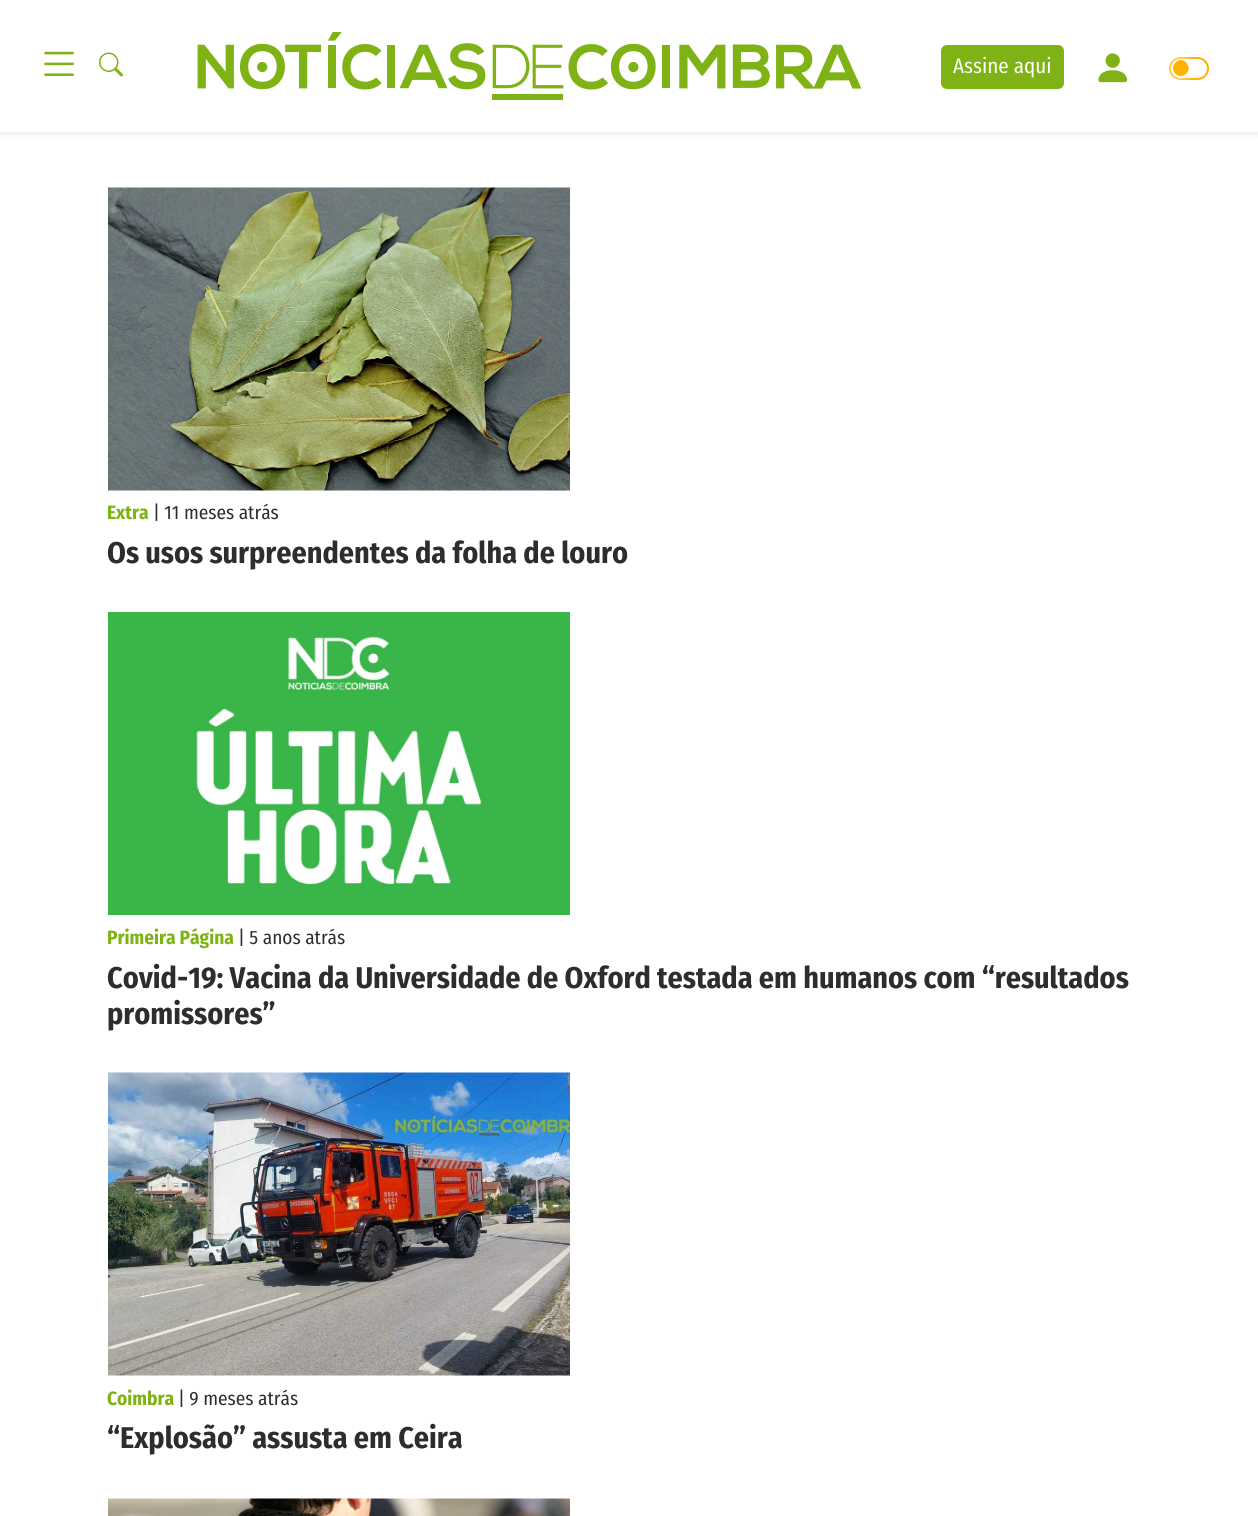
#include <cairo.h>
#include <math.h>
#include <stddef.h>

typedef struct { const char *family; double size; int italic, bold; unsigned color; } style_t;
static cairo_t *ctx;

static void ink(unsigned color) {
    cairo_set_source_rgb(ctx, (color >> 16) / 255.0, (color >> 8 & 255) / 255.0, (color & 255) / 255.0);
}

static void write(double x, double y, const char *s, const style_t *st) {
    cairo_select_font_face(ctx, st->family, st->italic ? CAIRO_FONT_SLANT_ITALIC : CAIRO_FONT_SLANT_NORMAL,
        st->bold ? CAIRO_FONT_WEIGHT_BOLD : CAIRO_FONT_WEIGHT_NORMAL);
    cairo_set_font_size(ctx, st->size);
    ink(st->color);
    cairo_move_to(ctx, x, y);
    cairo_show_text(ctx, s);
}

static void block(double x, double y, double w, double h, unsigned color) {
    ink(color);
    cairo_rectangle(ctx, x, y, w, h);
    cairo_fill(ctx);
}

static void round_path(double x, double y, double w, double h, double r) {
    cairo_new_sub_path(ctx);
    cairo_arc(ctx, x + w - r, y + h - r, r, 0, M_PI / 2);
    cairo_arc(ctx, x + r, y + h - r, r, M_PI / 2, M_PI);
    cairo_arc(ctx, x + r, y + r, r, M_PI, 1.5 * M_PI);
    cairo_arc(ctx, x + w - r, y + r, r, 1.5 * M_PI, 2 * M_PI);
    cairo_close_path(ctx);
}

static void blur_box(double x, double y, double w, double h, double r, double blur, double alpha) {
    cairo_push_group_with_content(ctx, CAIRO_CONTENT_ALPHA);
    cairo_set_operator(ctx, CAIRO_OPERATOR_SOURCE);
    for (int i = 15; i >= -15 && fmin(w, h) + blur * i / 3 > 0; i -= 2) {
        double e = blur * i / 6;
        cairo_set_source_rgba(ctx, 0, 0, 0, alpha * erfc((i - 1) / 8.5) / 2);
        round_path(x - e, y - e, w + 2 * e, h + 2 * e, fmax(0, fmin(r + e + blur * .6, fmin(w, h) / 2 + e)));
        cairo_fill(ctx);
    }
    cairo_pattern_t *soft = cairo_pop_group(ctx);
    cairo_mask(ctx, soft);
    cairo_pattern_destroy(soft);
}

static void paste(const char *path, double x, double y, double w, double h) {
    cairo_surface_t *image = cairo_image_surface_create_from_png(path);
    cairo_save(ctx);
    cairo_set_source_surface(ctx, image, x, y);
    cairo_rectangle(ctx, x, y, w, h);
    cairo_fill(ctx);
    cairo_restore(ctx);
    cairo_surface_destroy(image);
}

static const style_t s1 = {"Fira Sans Condensed", 21, 0, 0, 0xffffff};
static const style_t s2 = {"Fira Sans Condensed", 19.25, 0, 1, 0x7eb313};
static const style_t s3 = {"Fira Sans Condensed", 19.25, 0, 0, 0x2d2d2d};
static const style_t s4 = {"Fira Sans Condensed", 30, 0, 1, 0x2d2d2d};

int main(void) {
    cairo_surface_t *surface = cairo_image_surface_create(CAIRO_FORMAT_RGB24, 1258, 1516);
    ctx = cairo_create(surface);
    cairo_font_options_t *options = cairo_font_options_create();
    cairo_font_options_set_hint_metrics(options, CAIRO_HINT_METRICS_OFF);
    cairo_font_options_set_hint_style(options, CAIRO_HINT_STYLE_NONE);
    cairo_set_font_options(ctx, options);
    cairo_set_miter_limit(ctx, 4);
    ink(0xffffff);
    cairo_paint(ctx);
    ink(0x000000);
    blur_box(0, 3, 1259, 132, 0, 3, 0.07);
    block(0, 0, 1258, 132, 0xffffff);
    paste("pic1.png", 44, 51, 30, 25);
    paste("pic2.png", 99, 52, 24, 25);
    paste("pic3.png", 197, 32, 665, 68);
    ink(0x7fb315);
    round_path(941, 45, 123, 44, 6);
    cairo_fill(ctx);
    write(953, 73, "Assine aqui", &s1);
    paste("pic4.png", 1098, 53, 30, 30);
    round_path(1170, 58, 38, 21, 10.5);
    ink(0xffb200);
    cairo_stroke(ctx);
    ink(0xffffff);
    blur_box(1173, 60, 15, 17, 7.5, 5, 1);
    ink(0xffb200);
    cairo_new_path(ctx);
    cairo_move_to(ctx, 1175.5, 62.5);
    cairo_curve_to(ctx, 1182.5, 55, 1193.5, 66.5, 1186.5, 73.5);
    cairo_curve_to(ctx, 1179, 81, 1168, 70, 1175.5, 62.5);
    cairo_close_path(ctx);
    cairo_fill(ctx);
    paste("pic5.png", 108, 187, 462, 304);
    write(107, 519, "Extra", &s2);
    write(153, 519, "| 11 meses atrás", &s3);
    write(107, 563, "Os usos surpreendentes da folha de louro", &s4);
    paste("pic6.png", 108, 612, 462, 303);
    write(107, 944, "Primeira Página", &s2);
    write(238, 944, "| 5 anos atrás", &s3);
    write(107, 988, "Covid-19: Vacina da Universidade de Oxford testada em humanos com “resultados", &s4);
    write(107, 1024, "promissores”", &s4);
    paste("pic7.png", 108, 1072, 462, 304);
    write(107, 1405, "Coimbra", &s2);
    write(178, 1405, "| 9 meses atrás", &s3);
    write(107, 1448, "“Explosão” assusta em Ceira", &s4);
    paste("pic8.png", 108, 1498, 462, 18);
    cairo_surface_write_to_png(surface, "screenshot.png");
    cairo_font_options_destroy(options);
    cairo_destroy(ctx);
    cairo_surface_destroy(surface);
    return 0;
}
